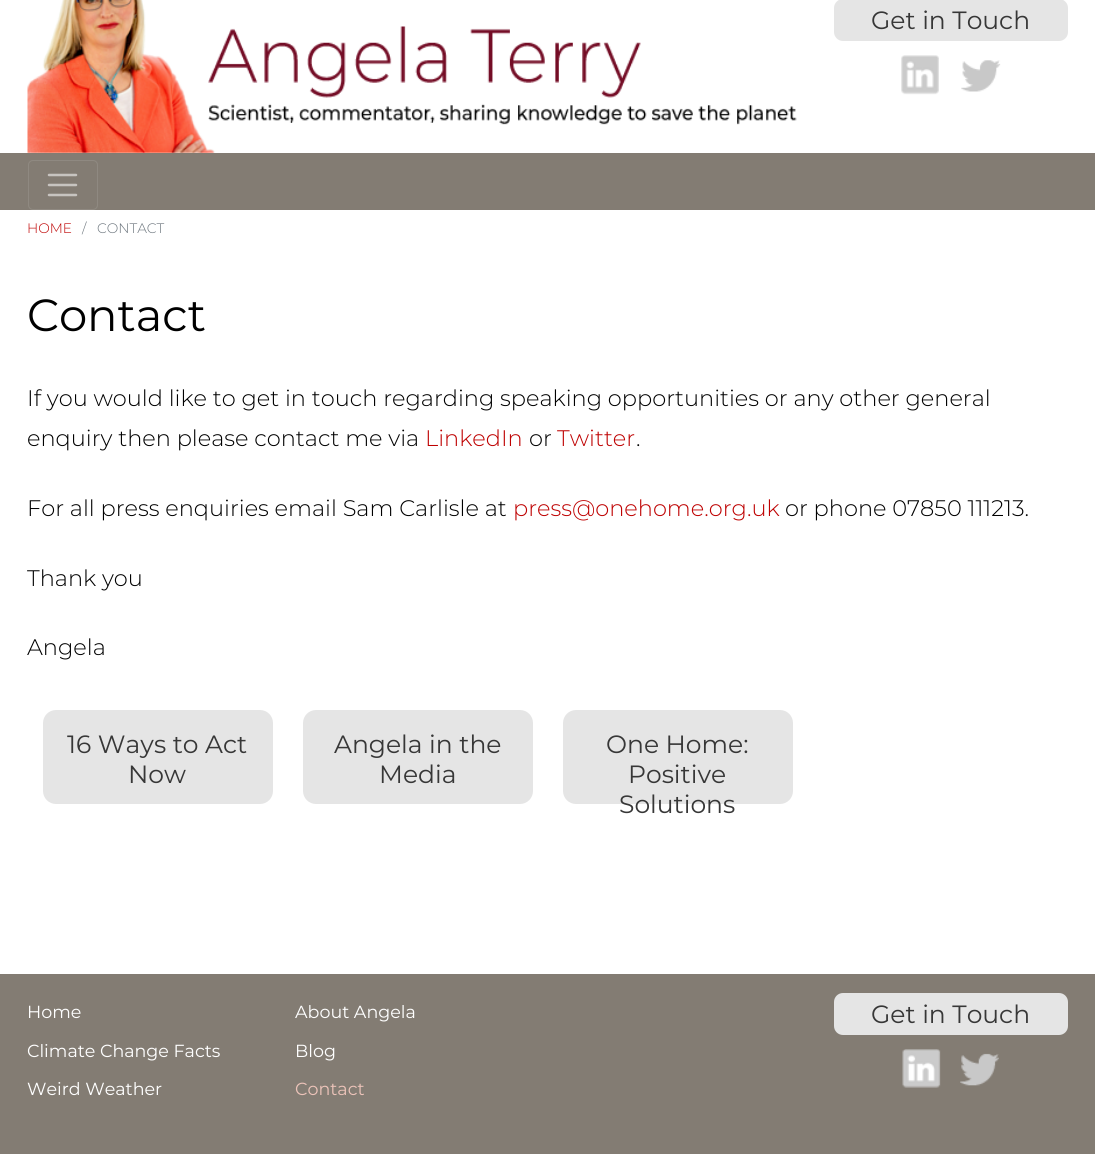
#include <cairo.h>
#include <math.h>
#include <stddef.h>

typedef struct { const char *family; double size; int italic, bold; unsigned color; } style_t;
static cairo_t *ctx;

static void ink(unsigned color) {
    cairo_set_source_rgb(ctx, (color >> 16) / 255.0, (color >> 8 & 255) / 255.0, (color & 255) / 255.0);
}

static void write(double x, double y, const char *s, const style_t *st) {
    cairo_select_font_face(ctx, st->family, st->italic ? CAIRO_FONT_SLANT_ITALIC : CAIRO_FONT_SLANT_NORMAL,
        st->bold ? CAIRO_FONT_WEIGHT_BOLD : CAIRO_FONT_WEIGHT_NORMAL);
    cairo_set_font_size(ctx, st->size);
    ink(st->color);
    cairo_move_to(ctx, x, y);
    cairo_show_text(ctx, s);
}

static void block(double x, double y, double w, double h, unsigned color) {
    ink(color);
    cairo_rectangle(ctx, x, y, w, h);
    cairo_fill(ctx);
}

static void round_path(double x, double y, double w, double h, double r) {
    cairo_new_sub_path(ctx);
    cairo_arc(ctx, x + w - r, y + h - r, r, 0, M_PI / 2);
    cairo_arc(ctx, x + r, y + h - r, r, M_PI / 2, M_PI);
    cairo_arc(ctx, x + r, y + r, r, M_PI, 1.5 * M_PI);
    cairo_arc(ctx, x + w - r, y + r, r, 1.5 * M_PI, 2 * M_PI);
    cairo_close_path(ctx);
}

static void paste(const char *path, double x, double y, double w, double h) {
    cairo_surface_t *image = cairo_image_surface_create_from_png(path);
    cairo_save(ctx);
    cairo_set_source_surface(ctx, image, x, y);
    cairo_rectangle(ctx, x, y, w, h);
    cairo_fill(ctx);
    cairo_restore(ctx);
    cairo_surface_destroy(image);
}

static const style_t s1 = {"Montserrat", 25, 0, 0, 0x373737};
static const style_t s2 = {"Montserrat Light", 13.75, 0, 0, 0xbe0101};
static const style_t s3 = {"Montserrat Light", 13.75, 0, 0, 0x6c757d};
static const style_t s4 = {"Montserrat", 45, 0, 0, 0x000000};
static const style_t s5 = {"Montserrat Light", 22.5, 0, 0, 0x000000};
static const style_t s6 = {"Montserrat Light", 22.5, 0, 0, 0xbe0101};
static const style_t s7 = {"Montserrat", 17.5, 0, 0, 0xffffff};
static const style_t s8 = {"Montserrat", 17.5, 0, 0, 0xecc3b9};

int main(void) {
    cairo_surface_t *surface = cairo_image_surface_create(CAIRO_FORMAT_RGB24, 1095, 1154);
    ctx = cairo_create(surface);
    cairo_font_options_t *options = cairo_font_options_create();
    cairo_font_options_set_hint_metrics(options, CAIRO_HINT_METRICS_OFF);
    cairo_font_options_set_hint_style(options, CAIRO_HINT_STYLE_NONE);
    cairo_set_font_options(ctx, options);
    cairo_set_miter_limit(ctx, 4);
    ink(0xffffff);
    cairo_paint(ctx);
    paste("pic1.png", 27, 0, 770, 153);
    ink(0xe5e5e5);
    round_path(834, -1, 234, 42, 9);
    cairo_fill(ctx);
    write(871, 29, "Get in Touch", &s1);
    paste("pic2.png", 901, 55, 38, 40);
    paste("pic3.png", 961, 60, 40, 32);
    block(0, 153, 1095, 57, 0x837c73);
    round_path(28.5, 160.5, 69, 49, 4.5);
    ink(0x8f8981);
    cairo_set_line_width(ctx, 1);
    cairo_stroke(ctx);
    cairo_new_path(ctx);
    cairo_move_to(ctx, 49, 175);
    cairo_line_to(ctx, 76, 175);
    cairo_move_to(ctx, 49, 185);
    cairo_line_to(ctx, 76, 185);
    cairo_move_to(ctx, 49, 195);
    cairo_line_to(ctx, 76, 195);
    ink(0xc7c4c0);
    cairo_set_line_width(ctx, 2.5);
    cairo_set_line_cap(ctx, CAIRO_LINE_CAP_ROUND);
    cairo_stroke(ctx);
    write(27, 233, "HOME", &s2);
    write(82, 233, "/", &s3);
    write(97, 233, "CONTACT", &s3);
    write(27, 331, "Contact", &s4);
    write(27, 406, "If you would like to get in touch regarding speaking opportunities or any other general", &s5);
    write(27, 446, "enquiry then please contact me via", &s5);
    write(425, 446, "LinkedIn", &s6);
    write(529, 446, "or", &s5);
    write(557, 446, "Twitter", &s6);
    write(636, 446, ".", &s5);
    write(27, 516, "For all press enquiries email Sam Carlisle at", &s5);
    write(513, 516, "press@onehome.org.uk", &s6);
    write(785, 516, "or phone 07850 111213.", &s5);
    write(27, 586, "Thank you", &s5);
    write(27, 655, "Angela", &s5);
    ink(0xe5e5e5);
    round_path(43, 710, 230, 94, 13);
    cairo_fill(ctx);
    write(67, 753, "16 Ways to Act", &s1);
    write(128, 783, "Now", &s1);
    ink(0xe5e5e5);
    round_path(303, 710, 230, 94, 13);
    cairo_fill(ctx);
    write(334, 753, "Angela in the", &s1);
    write(379, 783, "Media", &s1);
    ink(0xe5e5e5);
    round_path(563, 710, 230, 94, 13);
    cairo_fill(ctx);
    write(606, 753, "One Home:", &s1);
    write(628, 783, "Positive", &s1);
    write(619, 813, "Solutions", &s1);
    block(0, 974, 1095, 180, 0x837c73);
    write(27, 1018, "Home", &s7);
    write(27, 1057, "Climate Change Facts", &s7);
    write(27, 1095, "Weird Weather", &s7);
    write(295, 1018, "About Angela", &s7);
    write(295, 1057, "Blog", &s7);
    write(295, 1095, "Contact", &s8);
    ink(0xe5e5e5);
    round_path(834, 993, 234, 42, 9);
    cairo_fill(ctx);
    write(871, 1023, "Get in Touch", &s1);
    paste("pic4.png", 902, 1049, 39, 39);
    paste("pic5.png", 960, 1053, 39, 33);
    cairo_surface_write_to_png(surface, "screenshot.png");
    cairo_font_options_destroy(options);
    cairo_destroy(ctx);
    cairo_surface_destroy(surface);
    return 0;
}
